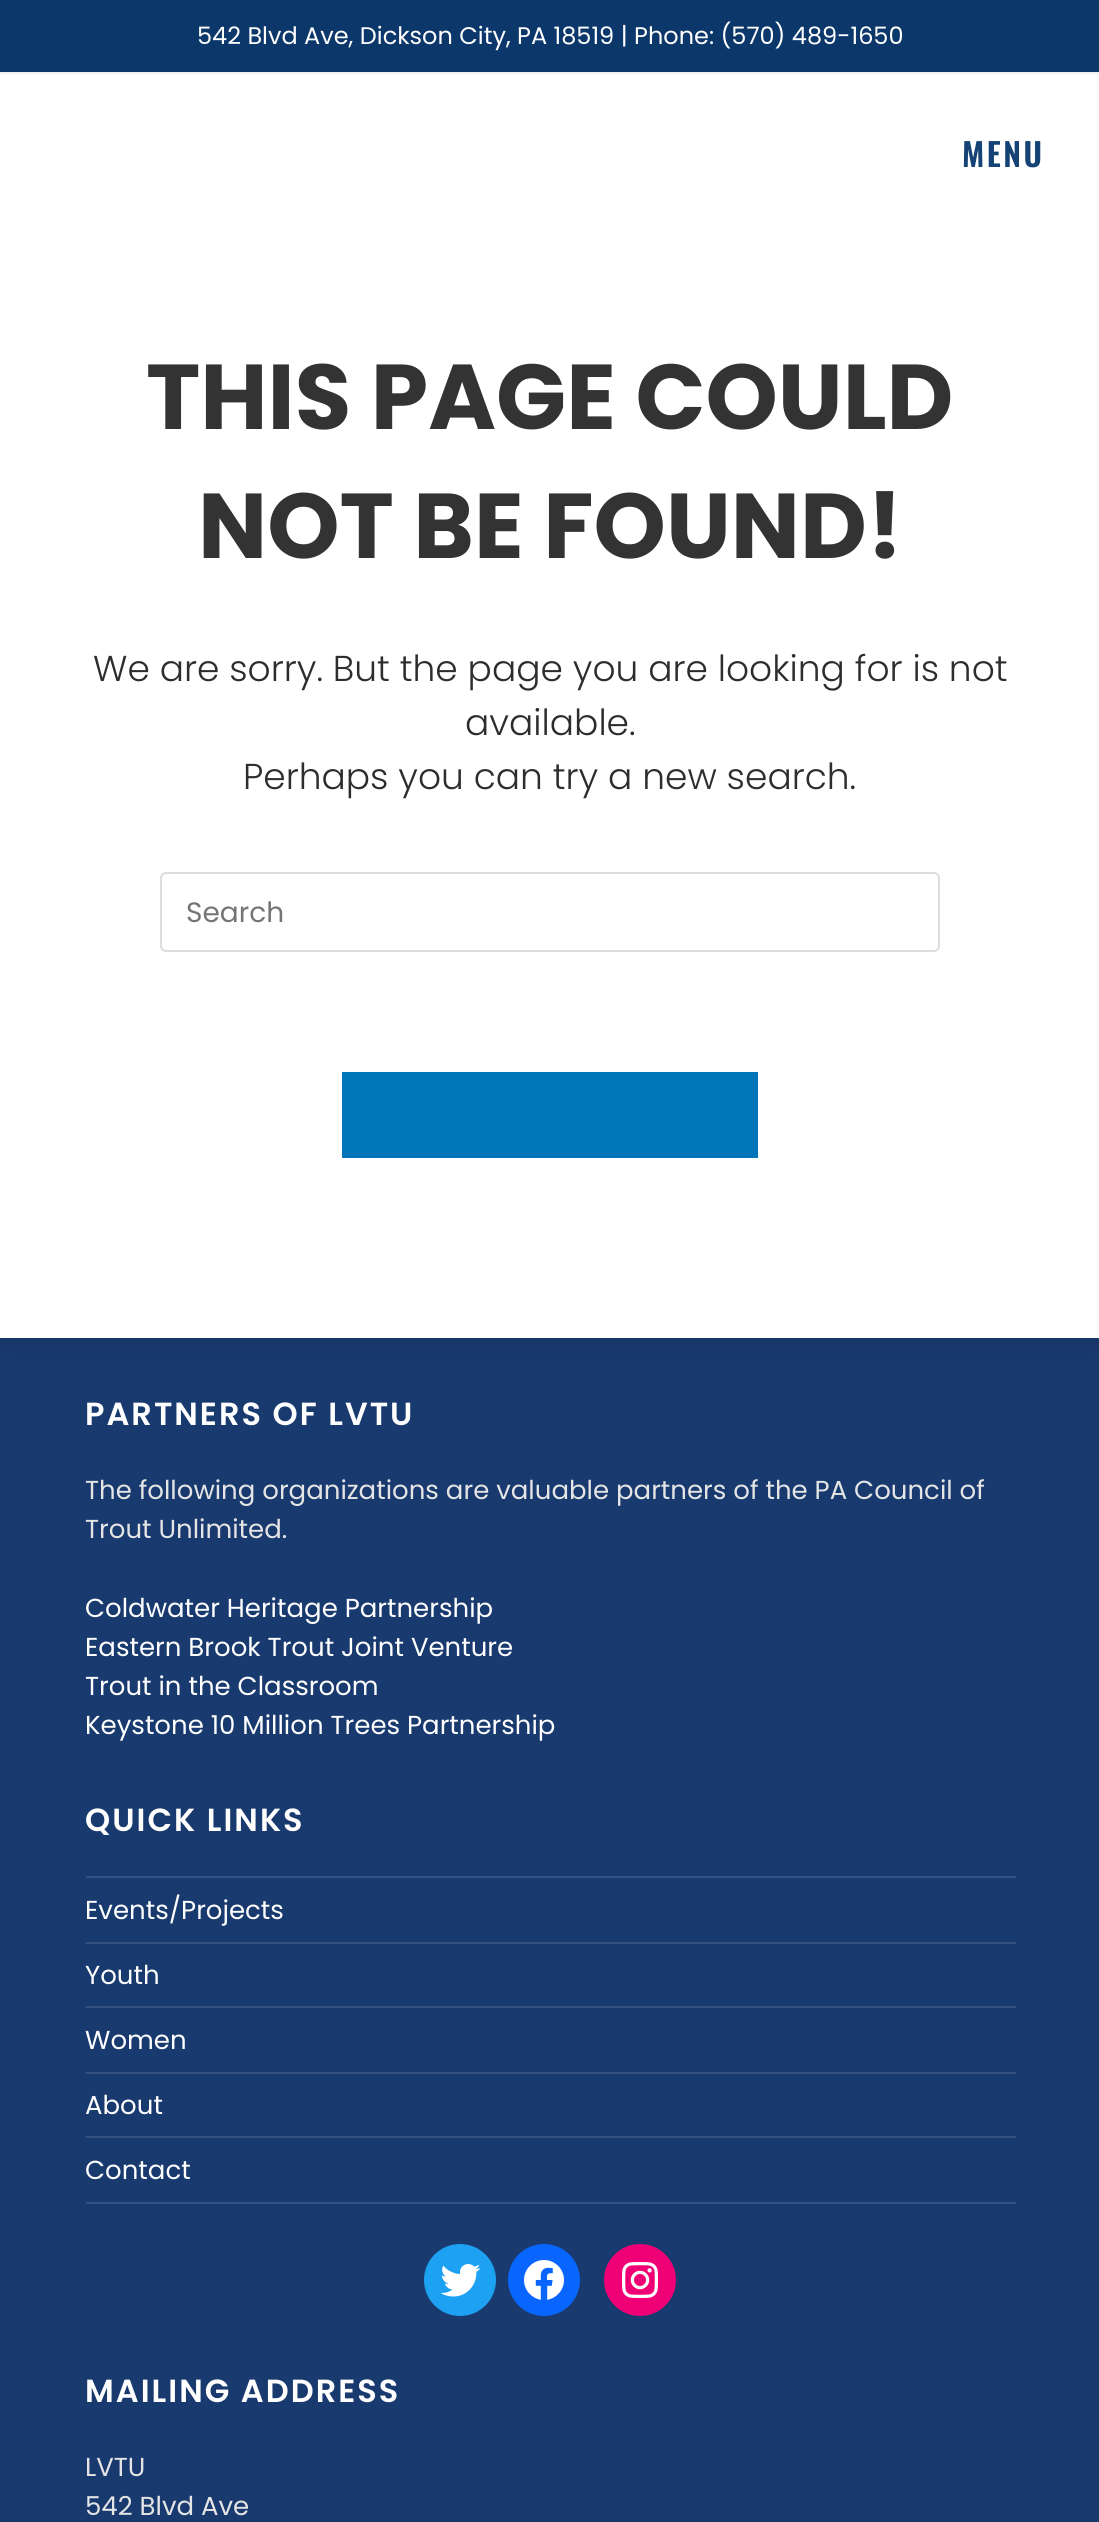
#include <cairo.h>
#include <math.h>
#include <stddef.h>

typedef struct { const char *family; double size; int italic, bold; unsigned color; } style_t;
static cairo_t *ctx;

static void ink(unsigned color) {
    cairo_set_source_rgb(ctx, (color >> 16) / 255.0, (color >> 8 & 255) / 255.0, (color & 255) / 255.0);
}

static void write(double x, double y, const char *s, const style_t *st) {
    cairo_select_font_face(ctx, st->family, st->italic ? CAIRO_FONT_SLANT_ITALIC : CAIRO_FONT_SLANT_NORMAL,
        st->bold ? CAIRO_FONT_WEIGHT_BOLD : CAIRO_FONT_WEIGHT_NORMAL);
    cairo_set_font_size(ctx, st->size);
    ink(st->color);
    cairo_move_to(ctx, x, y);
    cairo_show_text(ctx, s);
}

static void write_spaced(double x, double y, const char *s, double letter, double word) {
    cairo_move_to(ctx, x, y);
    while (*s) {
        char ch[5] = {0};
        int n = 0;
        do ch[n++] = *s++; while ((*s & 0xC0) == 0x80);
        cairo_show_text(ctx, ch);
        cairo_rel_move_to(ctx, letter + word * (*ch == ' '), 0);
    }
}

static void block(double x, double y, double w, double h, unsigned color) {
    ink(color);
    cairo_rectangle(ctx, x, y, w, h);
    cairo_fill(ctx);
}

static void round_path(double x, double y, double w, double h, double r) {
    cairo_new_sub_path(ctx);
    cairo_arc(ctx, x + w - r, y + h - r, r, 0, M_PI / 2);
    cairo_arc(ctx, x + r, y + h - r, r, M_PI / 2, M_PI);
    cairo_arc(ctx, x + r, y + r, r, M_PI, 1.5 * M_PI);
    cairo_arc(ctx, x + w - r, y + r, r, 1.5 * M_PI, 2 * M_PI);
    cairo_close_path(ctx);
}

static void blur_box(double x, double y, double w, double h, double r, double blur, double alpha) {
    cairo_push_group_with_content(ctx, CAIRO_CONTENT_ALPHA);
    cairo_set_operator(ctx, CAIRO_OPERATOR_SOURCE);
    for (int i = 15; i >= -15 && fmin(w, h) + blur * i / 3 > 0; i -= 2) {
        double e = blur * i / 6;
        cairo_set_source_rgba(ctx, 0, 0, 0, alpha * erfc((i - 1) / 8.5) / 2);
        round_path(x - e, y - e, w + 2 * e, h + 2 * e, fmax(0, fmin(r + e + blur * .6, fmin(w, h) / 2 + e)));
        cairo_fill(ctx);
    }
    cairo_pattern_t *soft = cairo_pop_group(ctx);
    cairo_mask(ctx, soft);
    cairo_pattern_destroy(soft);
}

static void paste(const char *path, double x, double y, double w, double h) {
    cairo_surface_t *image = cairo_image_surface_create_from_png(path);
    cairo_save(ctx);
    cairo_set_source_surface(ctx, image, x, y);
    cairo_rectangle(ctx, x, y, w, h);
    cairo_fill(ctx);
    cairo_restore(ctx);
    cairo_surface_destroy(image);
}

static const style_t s1 = {"Poppins", 24, 0, 0, 0xffffff};
static const style_t s2 = {"Poppins", 92, 0, 1, 0x333333};
static const style_t s3 = {"Poppins Light", 36, 0, 0, 0x2d2d2d};
static const style_t s4 = {"Poppins", 28, 0, 0, 0x757575};
static const style_t s5 = {"Poppins", 26, 0, 0, 0xe5e5e5};
static const style_t s6 = {"Poppins", 26, 0, 0, 0xffffff};

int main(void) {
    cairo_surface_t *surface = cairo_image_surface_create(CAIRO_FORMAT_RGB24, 1099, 2522);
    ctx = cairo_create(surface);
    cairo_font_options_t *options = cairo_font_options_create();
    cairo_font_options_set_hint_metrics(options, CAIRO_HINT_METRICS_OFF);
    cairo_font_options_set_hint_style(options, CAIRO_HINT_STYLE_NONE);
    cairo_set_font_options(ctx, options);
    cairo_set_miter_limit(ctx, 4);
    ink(0xffffff);
    cairo_paint(ctx);
    block(0, 0, 1099, 72, 0x0c376a);
    block(0, 72, 1099, 2, 0xf1f1f1);
    write(197, 44, "542 Blvd Ave, Dickson City, PA 18519 | Phone: (570) 489-1650", &s1);
    block(0, 1338, 1099, 1184, 0x193a6f);
    cairo_save(ctx);
    cairo_rectangle(ctx, 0, 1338, 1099, 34);
    cairo_clip(ctx);
    ink(0x000000);
    blur_box(0, 234, 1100, 1104, 0, 40, 0.1);
    cairo_restore(ctx);
    block(0, 183, 1099, 51, 0xffffff);
    cairo_select_font_face(ctx, "Oswald SemiBold", CAIRO_FONT_SLANT_NORMAL, CAIRO_FONT_WEIGHT_NORMAL);
    cairo_set_font_size(ctx, 32);
    ink(0x154375);
    write_spaced(962, 167, "MENU", 2.5, 0);
    write(146, 429, "THIS PAGE COULD", &s2);
    write(198, 558, "NOT BE FOUND!", &s2);
    write(93, 681, "We are sorry. But the page you are looking for is not", &s3);
    write(465, 735, "available.", &s3);
    write(243, 789, "Perhaps you can try a new search.", &s3);
    round_path(161, 873, 778, 78, 5);
    ink(0xdddddd);
    cairo_stroke(ctx);
    write(186, 922, "Search", &s4);
    block(342, 1072, 416, 86, 0x0075b8);
    cairo_select_font_face(ctx, "Poppins SemiBold", CAIRO_FONT_SLANT_NORMAL, CAIRO_FONT_WEIGHT_NORMAL);
    cairo_set_font_size(ctx, 32);
    ink(0xffffff);
    write_spaced(85, 1425, "PARTNERS OF LVTU", 2, 0);
    write(85, 1499, "The following organizations are valuable partners of the PA Council of", &s5);
    write(85, 1538, "Trout Unlimited.", &s5);
    write(85, 1617, "Coldwater Heritage Partnership", &s6);
    write(85, 1656, "Eastern Brook Trout Joint Venture", &s6);
    write(85, 1695, "Trout in the Classroom", &s6);
    write(85, 1734, "Keystone 10 Million Trees Partnership", &s6);
    cairo_select_font_face(ctx, "Poppins SemiBold", CAIRO_FONT_SLANT_NORMAL, CAIRO_FONT_WEIGHT_NORMAL);
    cairo_set_font_size(ctx, 32);
    write_spaced(85, 1831, "QUICK LINKS", 2, 0);
    block(86, 1876, 930, 2, 0x355280);
    block(86, 1942, 930, 2, 0x355280);
    write(85, 1919, "Events/Projects", &s6);
    block(86, 2006, 930, 2, 0x355280);
    write(85, 1984, "Youth", &s6);
    block(86, 2072, 930, 2, 0x355280);
    write(85, 2049, "Women", &s6);
    block(86, 2136, 930, 2, 0x355280);
    write(85, 2114, "About", &s6);
    block(86, 2202, 930, 2, 0x355280);
    write(85, 2179, "Contact", &s6);
    ink(0x1da1f2);
    cairo_new_path(ctx);
    cairo_arc(ctx, 460, 2280, 36, 0, 2 * M_PI);
    cairo_fill(ctx);
    paste("pic1.png", 440, 2264, 41, 33);
    ink(0x0866ff);
    cairo_arc(ctx, 544, 2280, 36, 0, 2 * M_PI);
    cairo_fill(ctx);
    paste("pic2.png", 524, 2260, 40, 40);
    ink(0xf00075);
    cairo_arc(ctx, 640, 2280, 36, 0, 2 * M_PI);
    cairo_fill(ctx);
    paste("pic3.png", 622, 2262, 36, 36);
    cairo_select_font_face(ctx, "Poppins SemiBold", CAIRO_FONT_SLANT_NORMAL, CAIRO_FONT_WEIGHT_NORMAL);
    cairo_set_font_size(ctx, 32);
    ink(0xffffff);
    write_spaced(85, 2402, "MAILING ADDRESS", 2, 0);
    write(85, 2476, "LVTU", &s5);
    write(85, 2515, "542 Blvd Ave", &s5);
    cairo_surface_write_to_png(surface, "screenshot.png");
    cairo_font_options_destroy(options);
    cairo_destroy(ctx);
    cairo_surface_destroy(surface);
    return 0;
}
